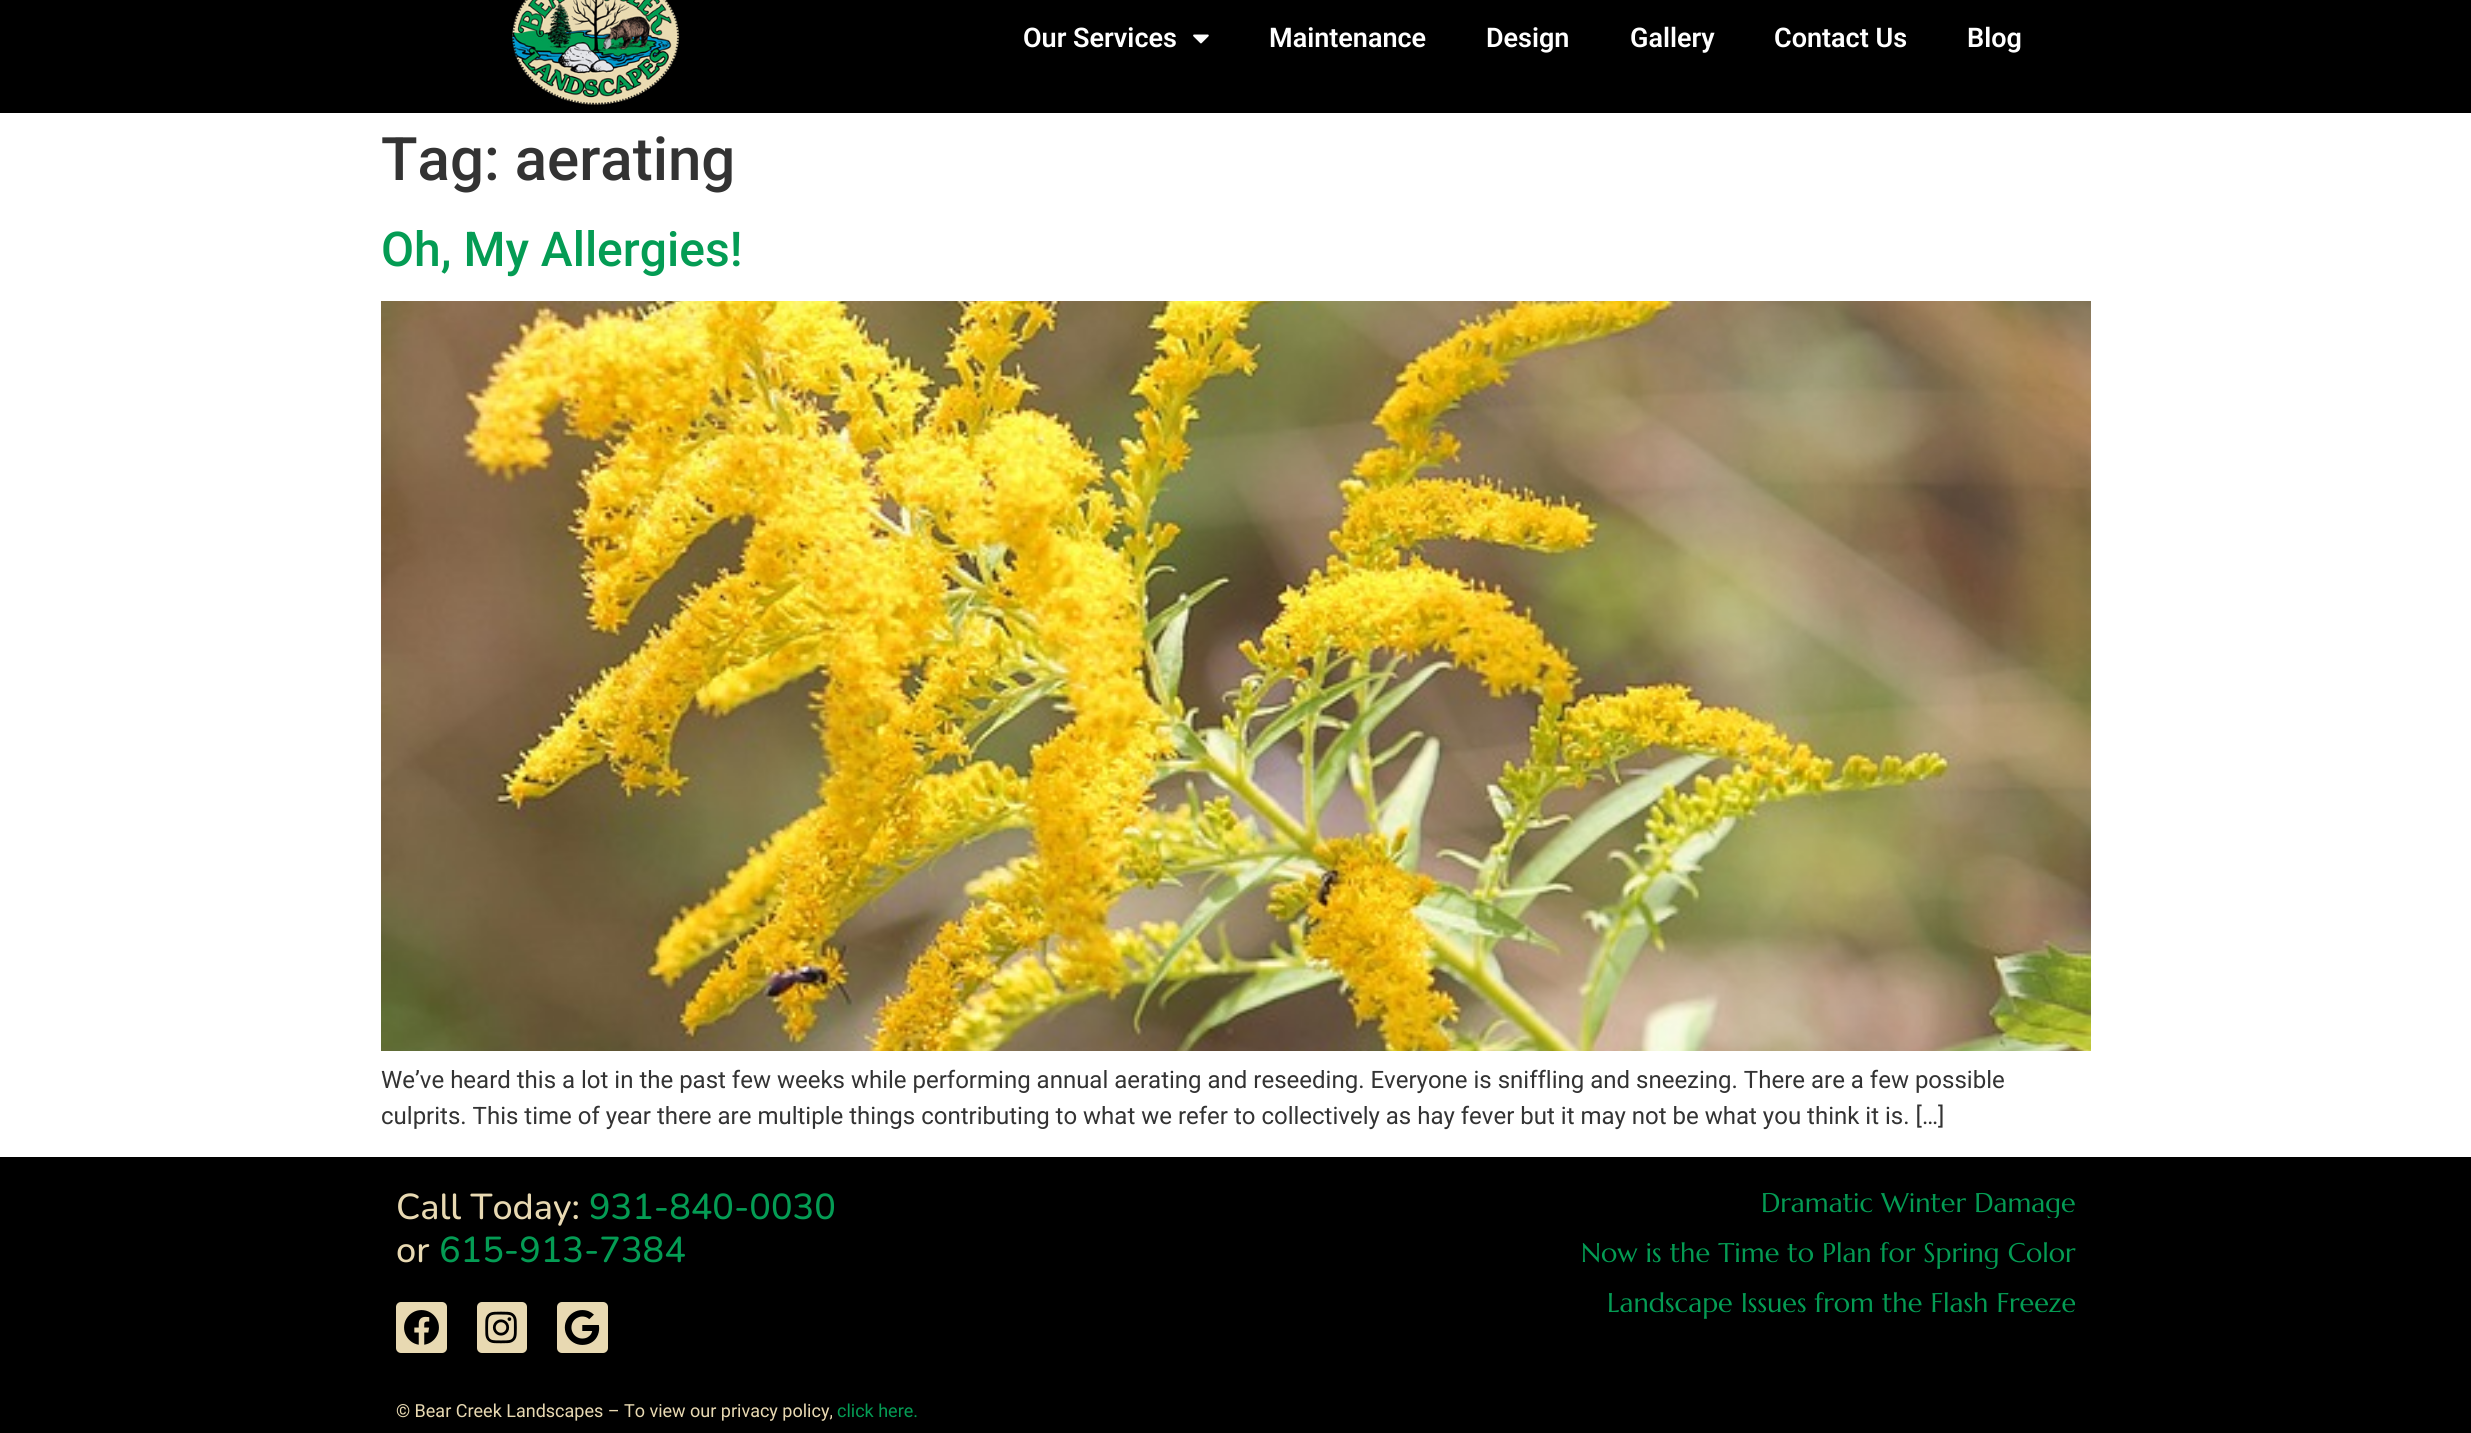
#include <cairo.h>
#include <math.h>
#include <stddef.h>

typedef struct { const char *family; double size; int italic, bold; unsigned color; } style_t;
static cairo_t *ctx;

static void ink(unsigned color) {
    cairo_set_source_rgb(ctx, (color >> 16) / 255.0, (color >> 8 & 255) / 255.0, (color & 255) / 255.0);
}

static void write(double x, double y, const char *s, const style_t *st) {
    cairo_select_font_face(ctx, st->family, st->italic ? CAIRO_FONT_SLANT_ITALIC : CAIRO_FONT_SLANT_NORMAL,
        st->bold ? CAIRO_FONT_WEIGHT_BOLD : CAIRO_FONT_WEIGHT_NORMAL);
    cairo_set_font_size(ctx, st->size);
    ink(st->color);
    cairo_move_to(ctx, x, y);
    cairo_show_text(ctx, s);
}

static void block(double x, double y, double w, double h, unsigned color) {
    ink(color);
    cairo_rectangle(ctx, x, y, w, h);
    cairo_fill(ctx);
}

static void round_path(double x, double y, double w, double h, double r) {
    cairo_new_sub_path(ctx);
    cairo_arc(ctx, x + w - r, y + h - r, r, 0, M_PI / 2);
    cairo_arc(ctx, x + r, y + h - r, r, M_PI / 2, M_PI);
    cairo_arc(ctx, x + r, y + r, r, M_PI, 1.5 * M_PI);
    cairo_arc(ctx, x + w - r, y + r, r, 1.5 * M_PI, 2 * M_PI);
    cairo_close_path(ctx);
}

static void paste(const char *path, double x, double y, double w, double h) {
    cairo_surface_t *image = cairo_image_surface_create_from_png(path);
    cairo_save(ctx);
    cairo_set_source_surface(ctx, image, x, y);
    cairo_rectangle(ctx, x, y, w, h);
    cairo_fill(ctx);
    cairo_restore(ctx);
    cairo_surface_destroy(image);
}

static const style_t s1 = {"Roboto SemiBold", 27, 0, 0, 0xffffff};
static const style_t s2 = {"Roboto Medium", 60, 0, 0, 0x333333};
static const style_t s3 = {"Roboto Medium", 48, 0, 0, 0x049c54};
static const style_t s4 = {"Roboto", 24, 0, 0, 0x333333};
static const style_t s5 = {"Nunito Medium", 36, 0, 0, 0xe8d9b2};
static const style_t s6 = {"Nunito Medium", 36, 0, 0, 0x049c54};
static const style_t s7 = {"Marcellus", 27, 0, 0, 0x049c54};
static const style_t s8 = {"Roboto", 18, 0, 0, 0xe8d9b2};
static const style_t s9 = {"Roboto", 18, 0, 0, 0x049c54};

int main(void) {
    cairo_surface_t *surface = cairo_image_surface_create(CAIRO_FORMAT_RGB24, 2471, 1433);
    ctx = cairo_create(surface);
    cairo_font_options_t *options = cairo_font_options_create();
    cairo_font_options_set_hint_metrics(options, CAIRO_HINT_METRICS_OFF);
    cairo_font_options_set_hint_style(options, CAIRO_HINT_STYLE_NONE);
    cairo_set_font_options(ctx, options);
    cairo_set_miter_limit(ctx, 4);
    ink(0xffffff);
    cairo_paint(ctx);
    block(0, 0, 2471, 113, 0x000000);
    paste("pic1.png", 512, 0, 168, 105);
    write(1023, 47, "Our Services", &s1);
    paste("pic2.png", 1193, 34, 16, 10);
    write(1269, 47, "Maintenance", &s1);
    write(1486, 47, "Design", &s1);
    write(1630, 47, "Gallery", &s1);
    write(1774, 47, "Contact Us", &s1);
    write(1967, 47, "Blog", &s1);
    write(381, 180, "Tag: aerating", &s2);
    write(381, 266, "Oh, My Allergies!", &s3);
    paste("pic3.png", 381, 301, 1710, 750);
    write(381, 1088, "We’ve heard this a lot in the past few weeks while performing annual aerating and reseeding. Everyone is sniffling and sneezing. There are a few possible", &s4);
    write(381, 1124, "culprits. This time of year there are multiple things contributing to what we refer to collectively as hay fever but it may not be what you think it is. […]", &s4);
    block(0, 1157, 2471, 276, 0x000000);
    write(396, 1219, "Call Today:", &s5);
    write(589, 1219, "931-840-0030", &s6);
    write(396, 1262, "or", &s5);
    write(439, 1262, "615-913-7384", &s6);
    ink(0xe8d9b2);
    round_path(396, 1302, 51, 51, 5);
    cairo_fill(ctx);
    paste("pic4.png", 404, 1310, 35, 35);
    round_path(477, 1302, 50, 51, 5);
    cairo_fill(ctx);
    paste("pic5.png", 485, 1311, 32, 33);
    round_path(557, 1302, 51, 51, 5);
    cairo_fill(ctx);
    paste("pic6.png", 564, 1310, 36, 35);
    cairo_save(ctx);
    cairo_rectangle(ctx, 1536, 1187, 540, 31);
    cairo_clip(ctx);
    write(1761, 1212, "Dramatic Winter Damage", &s7);
    cairo_restore(ctx);
    write(1581, 1262, "Now is the Time to Plan for Spring Color", &s7);
    write(1607, 1312, "Landscape Issues from the Flash Freeze", &s7);
    write(396, 1417, "© Bear Creek Landscapes – To view our privacy policy,", &s8);
    write(837, 1417, "click here.", &s9);
    cairo_surface_write_to_png(surface, "screenshot.png");
    cairo_font_options_destroy(options);
    cairo_destroy(ctx);
    cairo_surface_destroy(surface);
    return 0;
}
